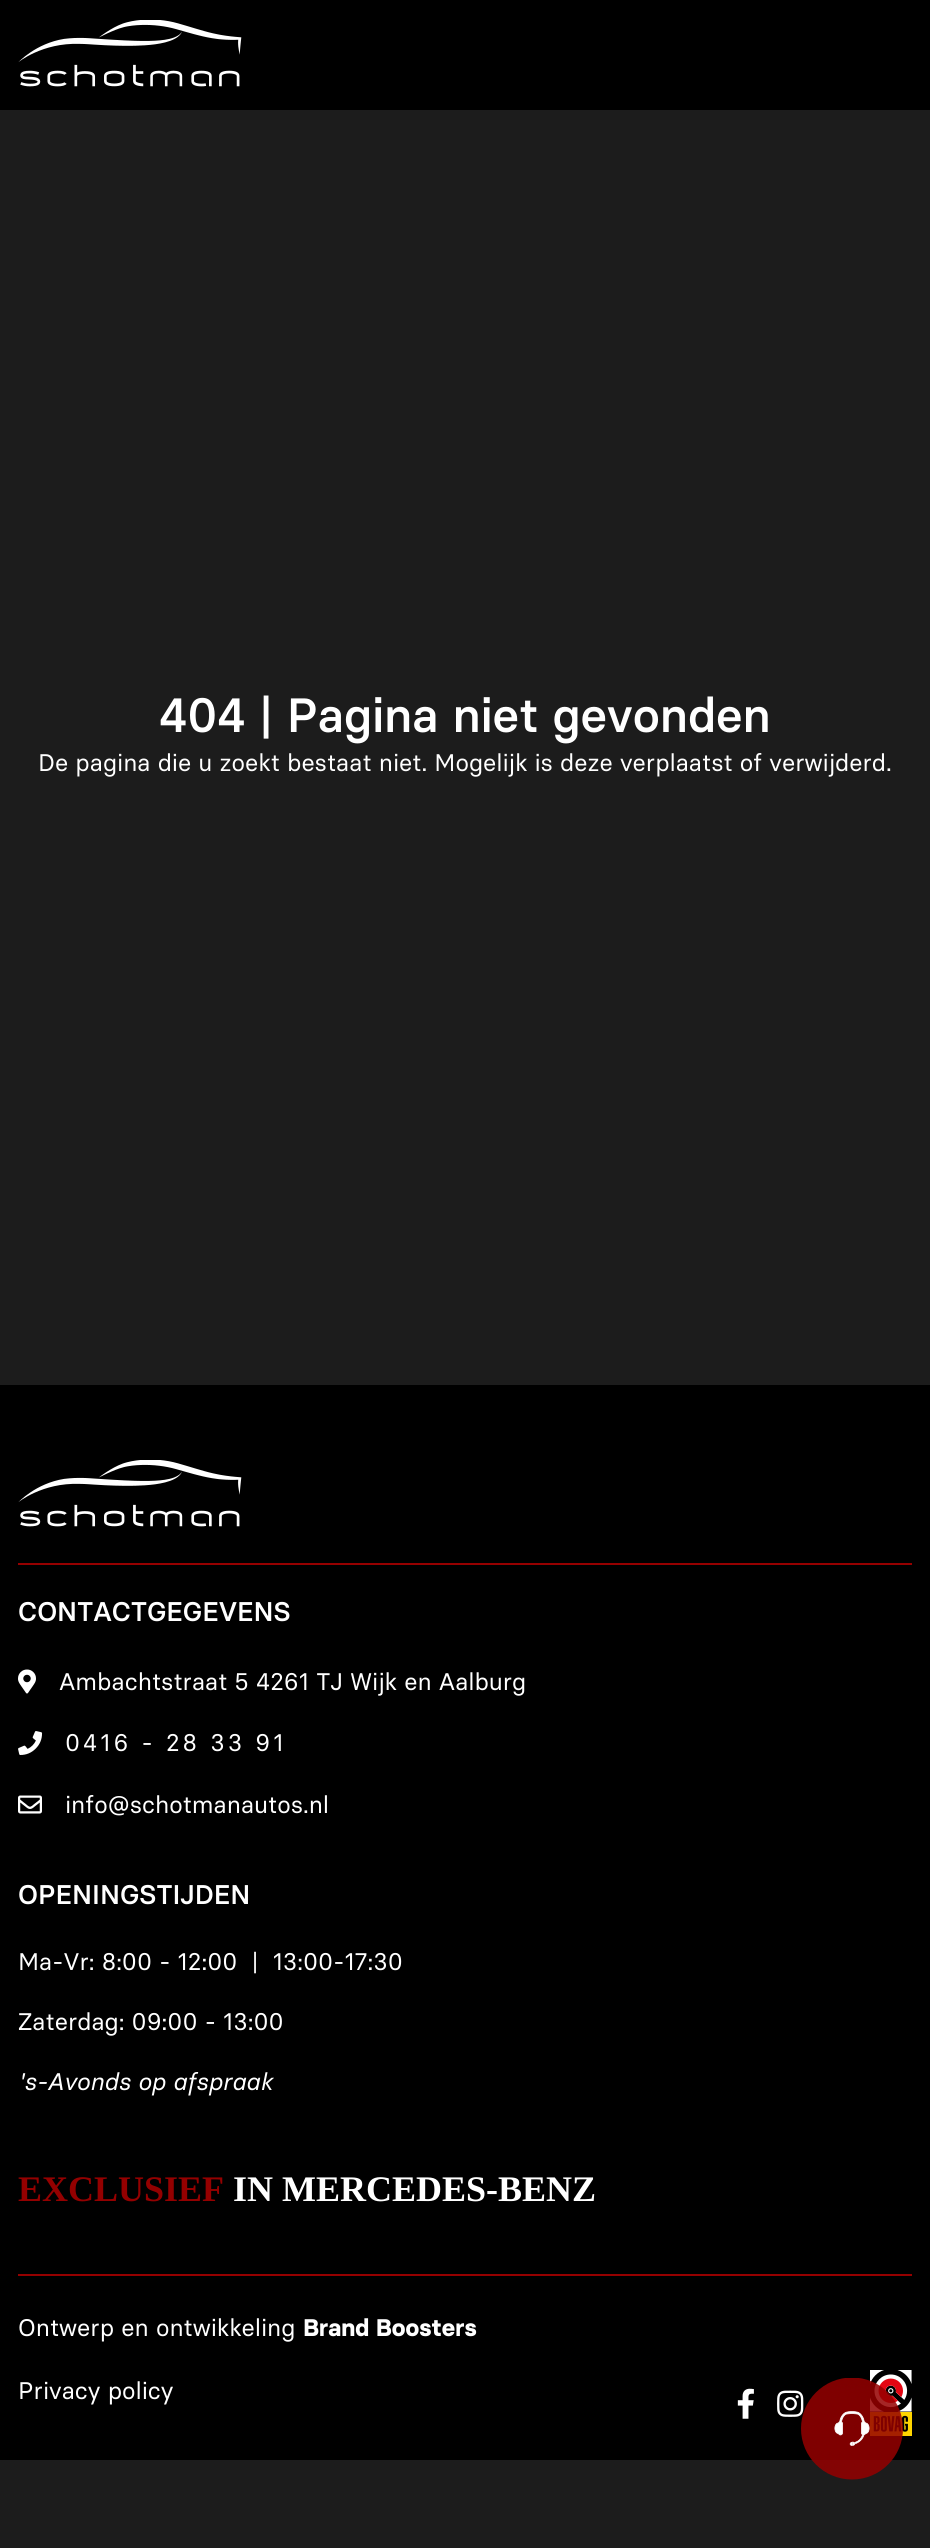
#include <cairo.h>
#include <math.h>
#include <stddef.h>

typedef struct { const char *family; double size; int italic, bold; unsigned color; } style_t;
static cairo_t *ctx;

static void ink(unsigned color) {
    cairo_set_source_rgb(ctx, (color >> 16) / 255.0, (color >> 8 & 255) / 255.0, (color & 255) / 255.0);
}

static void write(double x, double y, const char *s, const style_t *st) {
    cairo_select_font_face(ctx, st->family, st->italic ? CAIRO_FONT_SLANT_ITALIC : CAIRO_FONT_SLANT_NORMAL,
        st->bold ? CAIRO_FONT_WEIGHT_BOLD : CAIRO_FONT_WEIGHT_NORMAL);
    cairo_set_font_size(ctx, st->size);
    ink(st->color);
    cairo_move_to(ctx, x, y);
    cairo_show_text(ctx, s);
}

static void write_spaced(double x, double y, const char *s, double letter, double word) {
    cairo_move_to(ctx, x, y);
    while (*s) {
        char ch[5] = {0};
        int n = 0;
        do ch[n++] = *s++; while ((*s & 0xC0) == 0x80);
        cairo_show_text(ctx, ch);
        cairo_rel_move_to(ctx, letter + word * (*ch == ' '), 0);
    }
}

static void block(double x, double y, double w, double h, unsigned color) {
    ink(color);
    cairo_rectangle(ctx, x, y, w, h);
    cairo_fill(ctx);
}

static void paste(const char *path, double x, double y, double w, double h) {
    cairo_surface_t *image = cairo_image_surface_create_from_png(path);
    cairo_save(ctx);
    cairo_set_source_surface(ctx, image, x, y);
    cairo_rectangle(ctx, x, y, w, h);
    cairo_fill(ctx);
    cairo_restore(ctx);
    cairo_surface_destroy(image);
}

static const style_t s1 = {"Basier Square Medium", 48, 0, 0, 0xffffff};
static const style_t s2 = {"Basier Square", 24, 0, 0, 0xffffff};
static const style_t s3 = {"Basier Square Medium", 27, 0, 0, 0xffffff};
static const style_t s4 = {"Basier Square", 24, 1, 0, 0xffffff};
static const style_t s5 = {"Liberation Serif", 36, 0, 1, 0x940000};
static const style_t s6 = {"Liberation Serif", 36, 0, 1, 0xffffff};
static const style_t s7 = {"Basier Square", 24, 0, 1, 0xffffff};

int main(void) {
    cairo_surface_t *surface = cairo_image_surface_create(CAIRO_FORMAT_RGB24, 930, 2548);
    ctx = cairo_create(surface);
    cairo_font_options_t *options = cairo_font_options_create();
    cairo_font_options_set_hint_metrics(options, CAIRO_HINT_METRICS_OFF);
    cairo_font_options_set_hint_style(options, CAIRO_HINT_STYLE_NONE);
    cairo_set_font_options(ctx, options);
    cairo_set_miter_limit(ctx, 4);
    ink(0x1c1c1c);
    cairo_paint(ctx);
    block(0, 0, 930, 110, 0x000000);
    paste("pic1.png", 18, 20, 224, 67);
    block(0, 1385, 930, 1075, 0x000000);
    paste("pic7.png", 777, 2390, 27, 27);
    paste("pic8.png", 870, 2370, 42, 66);
    paste("pic2.png", 801, 2378, 102, 102);
    write(159, 732, "404 | Pagina niet gevonden", &s1);
    write(38, 771, "De pagina die u zoekt bestaat niet. Mogelijk is deze verplaatst of verwijderd.", &s2);
    paste("pic1.png", 18, 1460, 224, 67);
    block(18, 1563, 894, 2, 0x950000);
    write(18, 1621, "CONTACTGEGEVENS", &s3);
    paste("pic3.png", 18, 1669, 18, 25);
    write(59, 1690, "Ambachtstraat 5 4261 TJ Wijk en Aalburg", &s2);
    paste("pic4.png", 18, 1731, 25, 24);
    write_spaced(65, 1751, "0416 - 28 33 91", 3, 0);
    paste("pic5.png", 18, 1795, 24, 19);
    write(65, 1813, "info@schotmanautos.nl", &s2);
    write(18, 1904, "OPENINGSTIJDEN", &s3);
    write(18, 1970, "Ma-Vr: 8:00 - 12:00  |  13:00-17:30", &s2);
    write(18, 2030, "Zaterdag: 09:00 - 13:00", &s2);
    write(18, 2090, "'s-Avonds op afspraak", &s4);
    write(18, 2201, "EXCLUSIEF", &s5);
    write(233, 2201, "IN MERCEDES-BENZ", &s6);
    block(18, 2274, 894, 2, 0x950000);
    write(18, 2336, "Ontwerp en ontwikkeling", &s2);
    write(303, 2336, "Brand Boosters", &s7);
    write(18, 2399, "Privacy policy", &s2);
    paste("pic6.png", 737, 2388, 17, 31);
    cairo_surface_write_to_png(surface, "screenshot.png");
    cairo_font_options_destroy(options);
    cairo_destroy(ctx);
    cairo_surface_destroy(surface);
    return 0;
}
